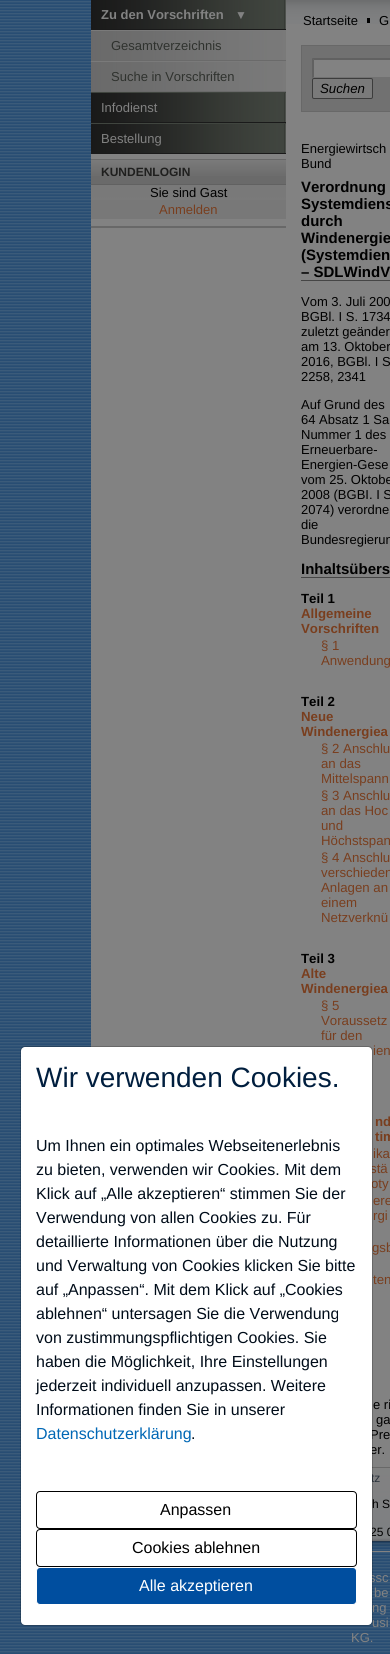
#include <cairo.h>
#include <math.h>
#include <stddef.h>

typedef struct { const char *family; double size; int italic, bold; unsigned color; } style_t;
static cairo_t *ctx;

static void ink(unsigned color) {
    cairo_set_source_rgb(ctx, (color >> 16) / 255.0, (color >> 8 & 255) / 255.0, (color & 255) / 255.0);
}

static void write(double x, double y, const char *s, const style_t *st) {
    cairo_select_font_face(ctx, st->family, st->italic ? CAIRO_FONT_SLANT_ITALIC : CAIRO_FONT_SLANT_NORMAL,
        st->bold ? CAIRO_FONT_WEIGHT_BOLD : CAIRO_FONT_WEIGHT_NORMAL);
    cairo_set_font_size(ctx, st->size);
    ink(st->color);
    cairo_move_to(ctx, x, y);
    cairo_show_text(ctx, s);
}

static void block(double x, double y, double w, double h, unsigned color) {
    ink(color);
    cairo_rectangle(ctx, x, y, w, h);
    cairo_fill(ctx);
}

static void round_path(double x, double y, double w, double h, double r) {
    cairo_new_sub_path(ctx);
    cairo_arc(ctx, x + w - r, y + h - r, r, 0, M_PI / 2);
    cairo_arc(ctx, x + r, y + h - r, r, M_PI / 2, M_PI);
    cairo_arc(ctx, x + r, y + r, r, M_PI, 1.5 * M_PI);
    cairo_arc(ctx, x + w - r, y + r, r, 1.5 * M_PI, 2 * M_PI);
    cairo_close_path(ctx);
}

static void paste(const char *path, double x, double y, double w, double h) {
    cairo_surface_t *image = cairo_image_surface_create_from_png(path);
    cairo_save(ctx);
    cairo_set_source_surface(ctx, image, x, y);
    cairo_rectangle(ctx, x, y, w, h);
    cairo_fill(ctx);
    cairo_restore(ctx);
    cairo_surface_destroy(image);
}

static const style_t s1 = {"Liberation Sans", 13, 0, 1, 0x828282};
static const style_t s2 = {"Liberation Sans", 12, 0, 0, 0x828282};
static const style_t s3 = {"Liberation Sans", 13, 0, 0, 0x2f322e};
static const style_t s4 = {"Liberation Sans", 13, 0, 0, 0x828282};
static const style_t s5 = {"Liberation Sans", 12, 0, 1, 0x1f1f1e};
static const style_t s6 = {"Liberation Sans", 13, 0, 0, 0x000000};
static const style_t s7 = {"Liberation Sans", 13, 0, 0, 0x793e1e};
static const style_t s8 = {"Liberation Sans", 13.25, 1, 0, 0x000000};
static const style_t s9 = {"Liberation Sans", 15, 0, 1, 0x000000};
static const style_t s10 = {"Liberation Sans", 13.25, 0, 1, 0x000000};
static const style_t s11 = {"Liberation Sans", 13.25, 0, 1, 0x793e1e};
static const style_t s12 = {"Liberation Sans", 13.25, 0, 0, 0x793e1e};
static const style_t s13 = {"Liberation Sans", 12, 0, 0, 0x2b343d};
static const style_t s14 = {"Liberation Sans", 12, 0, 0, 0x000000};
static const style_t s15 = {"Liberation Sans", 28, 0, 0, 0x001e3e};
static const style_t s16 = {"Liberation Sans", 16, 0, 0, 0x000c19};
static const style_t s17 = {"Liberation Sans", 16, 0, 0, 0x0067b5};
static const style_t s18 = {"Liberation Sans", 16, 0, 0, 0x000000};
static const style_t s19 = {"Liberation Sans", 16, 0, 0, 0xffffff};

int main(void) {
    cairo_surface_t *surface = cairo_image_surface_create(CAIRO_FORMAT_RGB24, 390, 1654);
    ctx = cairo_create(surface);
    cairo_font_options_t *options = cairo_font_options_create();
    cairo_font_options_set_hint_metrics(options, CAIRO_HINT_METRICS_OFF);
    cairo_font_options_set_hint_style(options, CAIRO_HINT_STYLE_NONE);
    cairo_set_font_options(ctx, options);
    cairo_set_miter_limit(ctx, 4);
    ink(0xffffff);
    cairo_paint(ctx);
    paste("pic1.png", 0, 0, 390, 1654);
    block(91, 24, 299, 1363, 0x828282);
    paste("pic2.png", 91, 0, 195, 29);
    block(91, 29, 195, 1, 0x1a1a1a);
    write(101, 19, "Zu den Vorschriften", &s1);
    write(235, 19, "▼", &s2);
    paste("pic3.png", 91, 31, 195, 29);
    block(91, 30, 195, 1, 0x7a7a7a);
    block(91, 60, 195, 1, 0x6a6a6a);
    write(111, 50, "Gesamtverzeichnis", &s3);
    paste("pic3.png", 91, 62, 195, 29);
    block(91, 61, 195, 1, 0x7a7a7a);
    block(91, 91, 195, 1, 0x6a6a6a);
    write(111, 81, "Suche in Vorschriften", &s3);
    paste("pic2.png", 91, 93, 195, 29);
    block(91, 92, 195, 1, 0x40453f);
    block(91, 122, 195, 1, 0x1a1a1a);
    write(101, 112, "Infodienst", &s4);
    paste("pic2.png", 91, 124, 195, 29);
    block(91, 123, 195, 1, 0x40453f);
    block(91, 153, 195, 1, 0x1a1a1a);
    write(101, 143, "Bestellung", &s4);
    block(91, 176, 195, 8, 0x6a6a6a);
    paste("pic4.png", 91, 160, 195, 16);
    block(91, 159, 195, 1, 0x686868);
    block(91, 184, 195, 1, 0x616161);
    write(101, 176, "KUNDENLOGIN", &s5);
    paste("pic5.png", 91, 185, 195, 15);
    write(150, 197, "Sie sind Gast", &s6);
    block(91, 200, 195, 19, 0x787878);
    write(159, 214, "Anmelden", &s7);
    block(91, 226, 195, 2, 0x686868);
    paste("pic6.png", 286, 0, 104, 24);
    write(303, 25, "Startseite", &s6);
    block(367, 18, 3, 5, 0x000000);
    write(379, 25, "G", &s6);
    ink(0x717171);
    cairo_rectangle(ctx, 301.5, 45.5, 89, 66);
    cairo_fill_preserve(ctx);
    ink(0x686868);
    cairo_set_line_width(ctx, 1);
    cairo_stroke(ctx);
    block(314, 60, 76, 17, 0x828282);
    ink(0x616161);
    cairo_new_path(ctx);
    cairo_move_to(ctx, 312, 58);
    cairo_line_to(ctx, 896, 58);
    cairo_line_to(ctx, 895, 60);
    cairo_line_to(ctx, 314, 60);
    cairo_close_path(ctx);
    cairo_fill(ctx);
    cairo_new_path(ctx);
    cairo_move_to(ctx, 312, 78);
    cairo_line_to(ctx, 312, 58);
    cairo_line_to(ctx, 314, 60);
    cairo_line_to(ctx, 314, 77);
    cairo_close_path(ctx);
    cairo_fill(ctx);
    ink(0x7a7a7a);
    round_path(312.5, 78.5, 60, 20, 1.5);
    cairo_fill_preserve(ctx);
    ink(0x3c3c3c);
    cairo_stroke(ctx);
    write(320, 93, "Suchen", &s8);
    write(301, 153, "Energiewirtsch", &s6);
    write(301, 168, "Bund", &s6);
    block(301, 280, 89, 1, 0x454545);
    write(301, 192, "Verordnung", &s9);
    write(301, 209, "Systemdiens", &s9);
    write(301, 226, "durch", &s9);
    write(301, 243, "Windenergie", &s9);
    write(301, 260, "(Systemdien", &s9);
    write(301, 277, "– SDLWindV", &s9);
    write(301, 306, "Vom 3. Juli 200", &s6);
    write(301, 321, "BGBl. I S. 1734", &s6);
    write(301, 336, "zuletzt geänder", &s6);
    write(301, 351, "am 13. Oktober", &s6);
    write(301, 366, "2016, BGBl. I S", &s6);
    write(301, 381, "2258, 2341", &s6);
    write(301, 409, "Auf Grund des", &s6);
    write(301, 424, "64 Absatz 1 Sa", &s6);
    write(301, 439, "Nummer 1 des", &s6);
    write(301, 454, "Erneuerbare-", &s6);
    write(301, 469, "Energien-Gese", &s6);
    write(301, 484, "vom 25. Oktobe", &s6);
    write(301, 499, "2008 (BGBI. I S", &s6);
    write(301, 514, "2074) verordne", &s6);
    write(301, 529, "die", &s6);
    write(301, 544, "Bundesregierun", &s6);
    block(301, 577, 89, 1, 0x454545);
    write(301, 574, "Inhaltsübers", &s9);
    write(301, 603, "Teil 1", &s10);
    write(301, 618, "Allgemeine", &s11);
    write(301, 633, "Vorschriften", &s11);
    write(321, 650, "§ 1", &s12);
    write(321, 665, "Anwendung", &s12);
    write(301, 706, "Teil 2", &s10);
    write(301, 721, "Neue", &s11);
    write(301, 736, "Windenergiea", &s11);
    write(321, 753, "§ 2 Anschlu", &s12);
    write(321, 768, "an das", &s12);
    write(321, 783, "Mittelspann", &s12);
    write(321, 800, "§ 3 Anschlu", &s12);
    write(321, 815, "an das Hoc", &s12);
    write(321, 830, "und", &s12);
    write(321, 845, "Höchstspan", &s12);
    write(321, 862, "§ 4 Anschlu", &s12);
    write(321, 877, "verschieden", &s12);
    write(321, 892, "Anlagen an", &s12);
    write(321, 907, "einem", &s12);
    write(321, 922, "Netzverknü", &s12);
    write(301, 963, "Teil 3", &s10);
    write(301, 978, "Alte", &s11);
    write(301, 993, "Windenergiea", &s11);
    write(321, 1010, "§ 5", &s12);
    write(321, 1025, "Voraussetz", &s12);
    write(321, 1040, "für den", &s12);
    write(373, 1055, "ien", &s12);
    write(375, 1126, "nd", &s11);
    write(375, 1141, "tim", &s11);
    write(373, 1158, "ika", &s12);
    write(370, 1173, "stä", &s12);
    write(371, 1188, "oty", &s12);
    write(373, 1205, "ere", &s12);
    write(373, 1220, "rgi", &s12);
    write(372, 1252, "gsb", &s12);
    write(373, 1284, "ten", &s12);
    block(372, 1387, 18, 80, 0x828282);
    write(373, 1409, "e ri", &s6);
    write(376, 1424, "ga", &s6);
    write(370, 1439, "Pre", &s6);
    write(370, 1454, "er.", &s6);
    paste("pic7.png", 372, 1468, 18, 84);
    block(372, 1467, 18, 1, 0x686868);
    write(371, 1482, "tz", &s13);
    write(372, 1508, "h S", &s14);
    write(370, 1536, "25 0", &s14);
    write(369, 1582, "ssc", &s4);
    write(374, 1597, "be", &s4);
    write(372, 1612, "ng", &s4);
    write(372, 1627, "usi", &s4);
    write(351, 1642, "KG.", &s4);
    ink(0xffffff);
    round_path(21, 1047, 351, 578, 4);
    cairo_fill(ctx);
    round_path(20.5, 1046.5, 352, 579, 4.5);
    cairo_set_source_rgba(ctx, 0, 0, 0, 0.2);
    cairo_stroke(ctx);
    write(36, 1087, "Wir verwenden Cookies.", &s15);
    write(36, 1151, "Um Ihnen ein optimales Webseitenerlebnis", &s16);
    write(36, 1175, "zu bieten, verwenden wir Cookies. Mit dem", &s16);
    write(36, 1199, "Klick auf „Alle akzeptieren“ stimmen Sie der", &s16);
    write(36, 1223, "Verwendung von allen Cookies zu. Für", &s16);
    write(36, 1247, "detaillierte Informationen über die Nutzung", &s16);
    write(36, 1271, "und Verwaltung von Cookies klicken Sie bitte", &s16);
    write(36, 1295, "auf „Anpassen“. Mit dem Klick auf „Cookies", &s16);
    write(36, 1319, "ablehnen“ untersagen Sie die Verwendung", &s16);
    write(36, 1343, "von zustimmungspflichtigen Cookies. Sie", &s16);
    write(36, 1367, "haben die Möglichkeit, Ihre Einstellungen", &s16);
    write(36, 1391, "jederzeit individuell anzupassen. Weitere", &s16);
    write(36, 1415, "Informationen finden Sie in unserer", &s16);
    write(36, 1439, "Datenschutzerklärung", &s17);
    write(191, 1439, ".", &s16);
    round_path(36.5, 1491.5, 320, 37, 3.5);
    ink(0x000000);
    cairo_stroke(ctx);
    write(160, 1515, "Anpassen", &s18);
    round_path(36.5, 1529.5, 320, 37, 3.5);
    cairo_stroke(ctx);
    write(132, 1553, "Cookies ablehnen", &s18);
    ink(0x004e9f);
    round_path(36.5, 1567.5, 320, 37, 3.5);
    cairo_fill_preserve(ctx);
    ink(0xffffff);
    cairo_stroke(ctx);
    write(139, 1591, "Alle akzeptieren", &s19);
    cairo_surface_write_to_png(surface, "screenshot.png");
    cairo_font_options_destroy(options);
    cairo_destroy(ctx);
    cairo_surface_destroy(surface);
    return 0;
}
